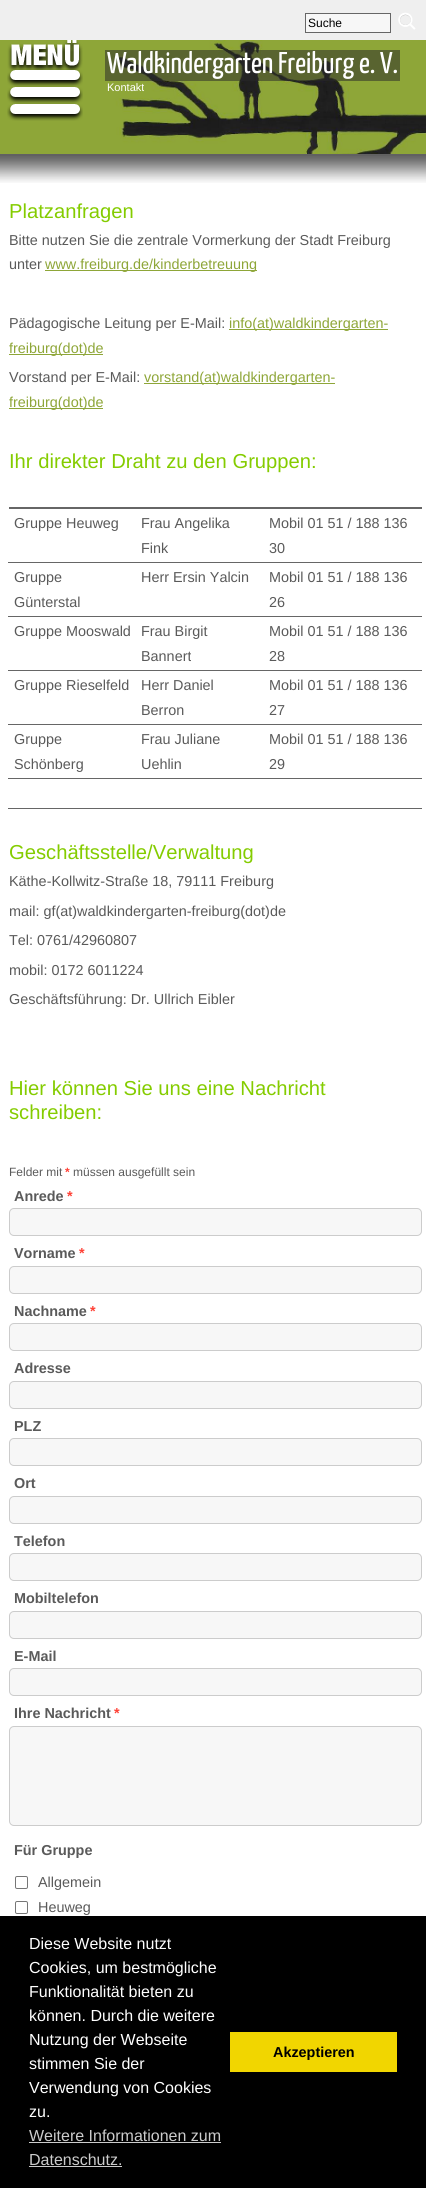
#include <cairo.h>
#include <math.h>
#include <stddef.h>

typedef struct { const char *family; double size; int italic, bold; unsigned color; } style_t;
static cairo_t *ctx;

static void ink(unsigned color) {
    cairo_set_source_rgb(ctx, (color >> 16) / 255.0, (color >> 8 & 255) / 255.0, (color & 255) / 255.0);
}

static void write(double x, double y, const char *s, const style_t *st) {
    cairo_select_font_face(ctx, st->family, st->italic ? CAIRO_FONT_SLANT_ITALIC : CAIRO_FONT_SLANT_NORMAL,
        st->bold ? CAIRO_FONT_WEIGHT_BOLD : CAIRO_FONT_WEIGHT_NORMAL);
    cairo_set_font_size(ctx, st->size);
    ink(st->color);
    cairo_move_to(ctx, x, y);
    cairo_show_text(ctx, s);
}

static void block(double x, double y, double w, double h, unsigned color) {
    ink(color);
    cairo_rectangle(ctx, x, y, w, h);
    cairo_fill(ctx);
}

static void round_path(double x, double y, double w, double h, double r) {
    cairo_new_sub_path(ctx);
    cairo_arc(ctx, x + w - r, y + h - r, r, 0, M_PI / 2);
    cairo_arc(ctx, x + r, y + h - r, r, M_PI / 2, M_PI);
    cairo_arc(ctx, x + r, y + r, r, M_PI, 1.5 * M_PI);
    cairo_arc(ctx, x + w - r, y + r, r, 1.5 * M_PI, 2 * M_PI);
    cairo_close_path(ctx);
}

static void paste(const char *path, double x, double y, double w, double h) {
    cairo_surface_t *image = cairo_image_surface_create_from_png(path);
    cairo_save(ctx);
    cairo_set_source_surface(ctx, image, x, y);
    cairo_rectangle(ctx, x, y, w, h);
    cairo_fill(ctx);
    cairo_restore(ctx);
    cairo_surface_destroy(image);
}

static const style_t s1 = {"Liberation Sans", 12, 0, 0, 0x000000};
static const style_t s2 = {"Yanone Kaffeesatz", 30, 0, 0, 0xffffff};
static const style_t s3 = {"Liberation Sans", 11, 0, 0, 0xffffff};
static const style_t s4 = {"Liberation Sans", 20.2, 0, 0, 0x84cc00};
static const style_t s5 = {"Liberation Sans", 14.4, 0, 0, 0x5a5a5a};
static const style_t s6 = {"Liberation Sans", 14.4, 0, 0, 0x8ea638};
static const style_t s7 = {"Liberation Sans", 12, 0, 0, 0x5a5a5a};
static const style_t s8 = {"Liberation Sans", 12, 0, 1, 0xff4136};
static const style_t s9 = {"Liberation Sans", 14.4, 0, 1, 0x5a5a5a};
static const style_t s10 = {"Liberation Sans", 14.4, 0, 1, 0xff4136};
static const style_t s11 = {"Liberation Sans", 16, 0, 0, 0xffffff};
static const style_t s12 = {"Liberation Sans", 16, 0, 0, 0xcccccc};
static const style_t s13 = {"Liberation Sans", 14.4, 0, 1, 0x000000};

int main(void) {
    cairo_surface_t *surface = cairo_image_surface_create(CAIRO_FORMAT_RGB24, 426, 2188);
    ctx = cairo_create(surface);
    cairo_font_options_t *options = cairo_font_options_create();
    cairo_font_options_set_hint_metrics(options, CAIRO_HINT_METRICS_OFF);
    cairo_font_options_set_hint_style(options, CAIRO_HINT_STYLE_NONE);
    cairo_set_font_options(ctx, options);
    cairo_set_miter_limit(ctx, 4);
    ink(0xffffff);
    cairo_paint(ctx);
    block(0, 0, 426, 40, 0xefefef);
    ink(0xf7f7f7);
    cairo_rectangle(ctx, 305.5, 13.5, 85, 19);
    cairo_fill_preserve(ctx);
    ink(0x666666);
    cairo_set_line_width(ctx, 1);
    cairo_stroke(ctx);
    write(308, 27, "Suche", &s1);
    paste("pic1.png", 398, 12, 18, 18);
    paste("pic2.png", 0, 40, 426, 114);
    paste("pic3.png", 7, 40, 76, 81);
    cairo_set_source_rgba(ctx, 0.165, 0.165, 0.165, 0.52);
    cairo_rectangle(ctx, 105, 50, 295, 31);
    cairo_fill(ctx);
    write(107, 73, "Waldkindergarten Freiburg e. V.", &s2);
    write(107, 91, "Kontakt", &s3);
    paste("pic4.png", 0, 154, 426, 29);
    write(9, 218, "Platzanfragen", &s4);
    write(9, 245, "Bitte nutzen Sie die zentrale Vormerkung der Stadt Freiburg", &s5);
    write(9, 269, "unter", &s5);
    block(45, 270, 212, 1, 0x8ea638);
    write(45, 269, "www.freiburg.de/kinderbetreuung", &s6);
    write(9, 328, "Pädagogische Leitung per E-Mail:", &s5);
    block(229, 329, 159, 1, 0x8ea638);
    write(229, 328, "info(at)waldkindergarten-", &s6);
    block(9, 354, 94, 1, 0x8ea638);
    write(9, 353, "freiburg(dot)de", &s6);
    write(9, 382, "Vorstand per E-Mail:", &s5);
    block(144, 383, 191, 1, 0x8ea638);
    write(144, 382, "vorstand(at)waldkindergarten-", &s6);
    block(9, 408, 94, 1, 0x8ea638);
    write(9, 407, "freiburg(dot)de", &s6);
    write(9, 468, "Ihr direkter Draht zu den Gruppen:", &s4);
    block(9, 507, 413, 2, 0x666666);
    write(14, 528, "Gruppe Heuweg", &s5);
    write(141, 528, "Frau Angelika", &s5);
    write(141, 553, "Fink", &s5);
    block(8, 562, 414, 1, 0x666666);
    write(269, 528, "Mobil 01 51 / 188 136", &s5);
    write(269, 553, "30", &s5);
    write(14, 582, "Gruppe", &s5);
    write(14, 607, "Günterstal", &s5);
    write(141, 582, "Herr Ersin Yalcin", &s5);
    block(8, 616, 414, 1, 0x666666);
    write(269, 582, "Mobil 01 51 / 188 136", &s5);
    write(269, 607, "26", &s5);
    write(14, 636, "Gruppe Mooswald", &s5);
    write(141, 636, "Frau Birgit", &s5);
    write(141, 661, "Bannert", &s5);
    block(8, 670, 414, 1, 0x666666);
    write(269, 636, "Mobil 01 51 / 188 136", &s5);
    write(269, 661, "28", &s5);
    write(14, 690, "Gruppe Rieselfeld", &s5);
    write(141, 690, "Herr Daniel", &s5);
    write(141, 715, "Berron", &s5);
    block(8, 724, 414, 1, 0x666666);
    write(269, 690, "Mobil 01 51 / 188 136", &s5);
    write(269, 715, "27", &s5);
    write(14, 744, "Gruppe", &s5);
    write(14, 769, "Schönberg", &s5);
    write(141, 744, "Frau Juliane", &s5);
    write(141, 769, "Uehlin", &s5);
    block(8, 778, 414, 1, 0x666666);
    write(269, 744, "Mobil 01 51 / 188 136", &s5);
    write(269, 769, "29", &s5);
    block(8, 808, 414, 1, 0x666666);
    write(9, 859, "Geschäftsstelle/Verwaltung", &s4);
    write(9, 886, "Käthe-Kollwitz-Straße 18, 79111 Freiburg", &s5);
    write(9, 916, "mail: gf(at)waldkindergarten-freiburg(dot)de", &s5);
    write(9, 945, "Tel: 0761/42960807", &s5);
    write(9, 975, "mobil: 0172 6011224", &s5);
    write(9, 1004, "Geschäftsführung: Dr. Ullrich Eibler", &s5);
    write(9, 1095, "Hier können Sie uns eine Nachricht", &s4);
    write(9, 1119, "schreiben:", &s4);
    write(9, 1176, "Felder mit", &s7);
    write(65, 1176, "*", &s8);
    write(73, 1176, "müssen ausgefüllt sein", &s7);
    write(14, 1201, "Anrede", &s9);
    write(67, 1201, "*", &s10);
    ink(0xf7f7f7);
    round_path(9.5, 1208.5, 412, 27, 4.5);
    cairo_fill_preserve(ctx);
    ink(0xcccccc);
    cairo_stroke(ctx);
    write(14, 1258, "Vorname", &s9);
    write(79, 1258, "*", &s10);
    ink(0xf7f7f7);
    round_path(9.5, 1266.5, 412, 27, 4.5);
    cairo_fill_preserve(ctx);
    ink(0xcccccc);
    cairo_stroke(ctx);
    write(14, 1316, "Nachname", &s9);
    write(90, 1316, "*", &s10);
    ink(0xf7f7f7);
    round_path(9.5, 1323.5, 412, 27, 4.5);
    cairo_fill_preserve(ctx);
    ink(0xcccccc);
    cairo_stroke(ctx);
    write(14, 1373, "Adresse", &s9);
    ink(0xf7f7f7);
    round_path(9.5, 1381.5, 412, 27, 4.5);
    cairo_fill_preserve(ctx);
    ink(0xcccccc);
    cairo_stroke(ctx);
    write(14, 1431, "PLZ", &s9);
    ink(0xf7f7f7);
    round_path(9.5, 1438.5, 412, 27, 4.5);
    cairo_fill_preserve(ctx);
    ink(0xcccccc);
    cairo_stroke(ctx);
    write(14, 1488, "Ort", &s9);
    ink(0xf7f7f7);
    round_path(9.5, 1496.5, 412, 27, 4.5);
    cairo_fill_preserve(ctx);
    ink(0xcccccc);
    cairo_stroke(ctx);
    write(14, 1546, "Telefon", &s9);
    ink(0xf7f7f7);
    round_path(9.5, 1553.5, 412, 27, 4.5);
    cairo_fill_preserve(ctx);
    ink(0xcccccc);
    cairo_stroke(ctx);
    write(14, 1603, "Mobiltelefon", &s9);
    ink(0xf7f7f7);
    round_path(9.5, 1611.5, 412, 27, 4.5);
    cairo_fill_preserve(ctx);
    ink(0xcccccc);
    cairo_stroke(ctx);
    write(14, 1661, "E-Mail", &s9);
    ink(0xf7f7f7);
    round_path(9.5, 1668.5, 412, 27, 4.5);
    cairo_fill_preserve(ctx);
    ink(0xcccccc);
    cairo_stroke(ctx);
    write(14, 1718, "Ihre Nachricht", &s9);
    write(114, 1718, "*", &s10);
    ink(0xf7f7f7);
    round_path(9.5, 1726.5, 412, 99, 4.5);
    cairo_fill_preserve(ctx);
    ink(0xcccccc);
    cairo_stroke(ctx);
    write(14, 1855, "Für Gruppe", &s9);
    round_path(15.5, 1876.5, 12, 12, 1.5);
    ink(0x767676);
    cairo_stroke(ctx);
    write(38, 1887, "Allgemein", &s5);
    round_path(15.5, 1901.5, 12, 12, 1.5);
    ink(0x767676);
    cairo_stroke(ctx);
    write(38, 1912, "Heuweg", &s5);
    block(0, 1916, 426, 272, 0x000000);
    write(29, 1949, "Diese Website nutzt", &s11);
    write(29, 1973, "Cookies, um bestmögliche", &s11);
    write(29, 1997, "Funktionalität bieten zu", &s11);
    write(29, 2021, "können. Durch die weitere", &s11);
    write(29, 2045, "Nutzung der Webseite", &s11);
    write(29, 2069, "stimmen Sie der", &s11);
    write(29, 2093, "Verwendung von Cookies", &s11);
    write(29, 2117, "zu.", &s11);
    write(29, 2141, "Weitere Informationen zum", &s12);
    block(29, 2142, 192, 1, 0xcccccc);
    write(29, 2165, "Datenschutz.", &s12);
    block(29, 2166, 93, 1, 0xcccccc);
    block(230, 2032, 167, 40, 0xf1d600);
    write(273, 2057, "Akzeptieren", &s13);
    cairo_surface_write_to_png(surface, "screenshot.png");
    cairo_font_options_destroy(options);
    cairo_destroy(ctx);
    cairo_surface_destroy(surface);
    return 0;
}
